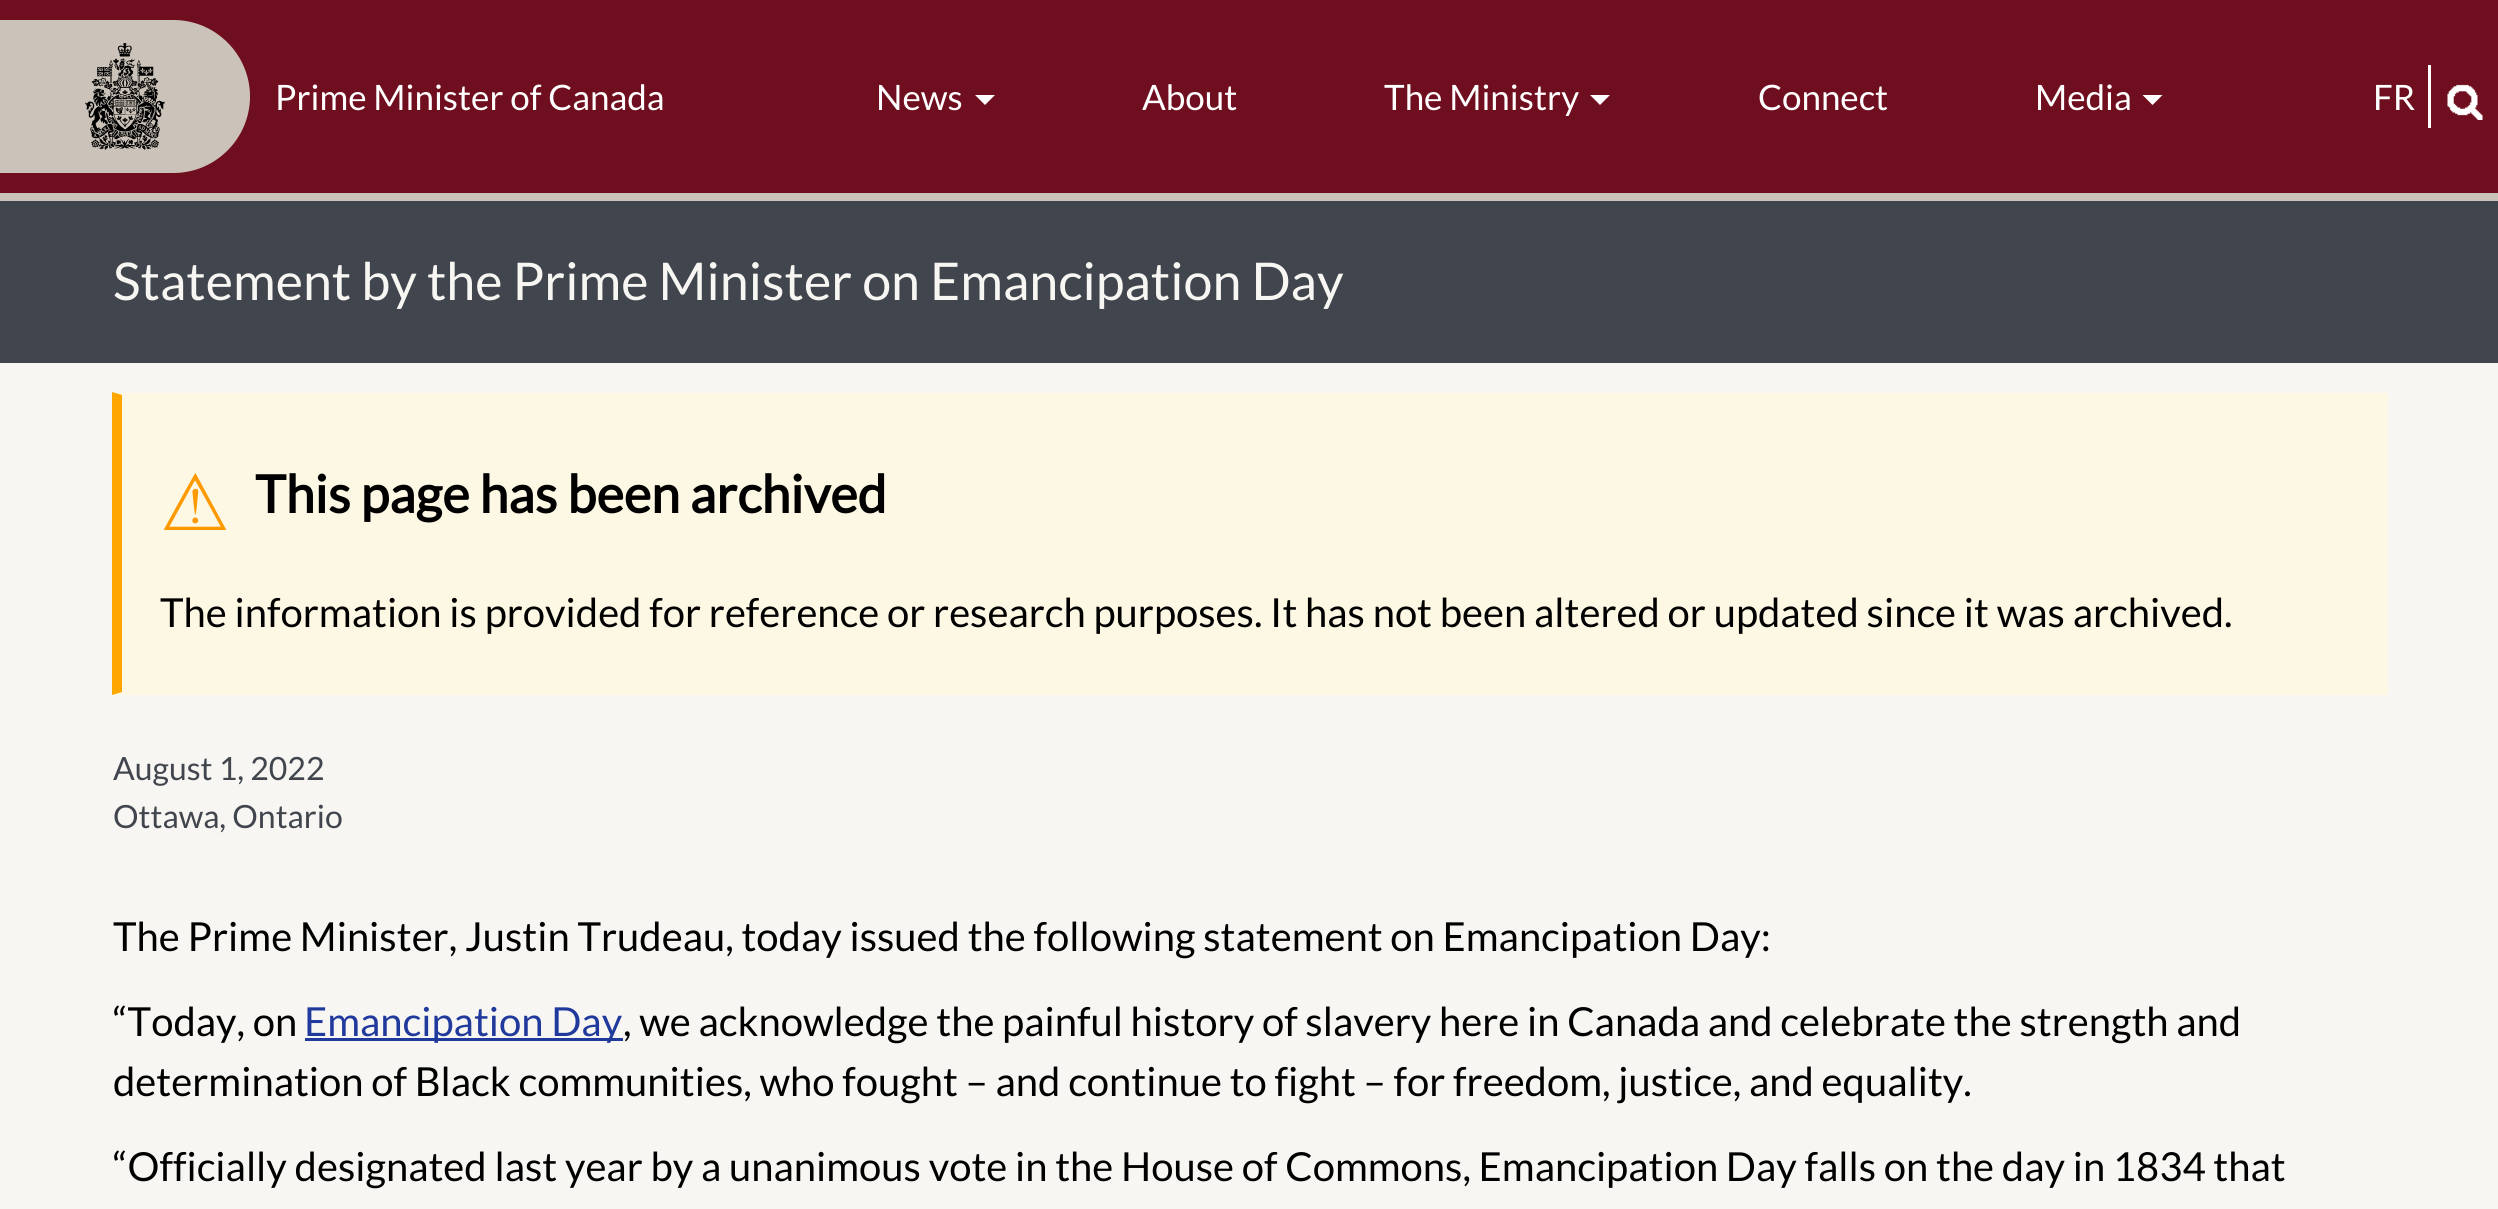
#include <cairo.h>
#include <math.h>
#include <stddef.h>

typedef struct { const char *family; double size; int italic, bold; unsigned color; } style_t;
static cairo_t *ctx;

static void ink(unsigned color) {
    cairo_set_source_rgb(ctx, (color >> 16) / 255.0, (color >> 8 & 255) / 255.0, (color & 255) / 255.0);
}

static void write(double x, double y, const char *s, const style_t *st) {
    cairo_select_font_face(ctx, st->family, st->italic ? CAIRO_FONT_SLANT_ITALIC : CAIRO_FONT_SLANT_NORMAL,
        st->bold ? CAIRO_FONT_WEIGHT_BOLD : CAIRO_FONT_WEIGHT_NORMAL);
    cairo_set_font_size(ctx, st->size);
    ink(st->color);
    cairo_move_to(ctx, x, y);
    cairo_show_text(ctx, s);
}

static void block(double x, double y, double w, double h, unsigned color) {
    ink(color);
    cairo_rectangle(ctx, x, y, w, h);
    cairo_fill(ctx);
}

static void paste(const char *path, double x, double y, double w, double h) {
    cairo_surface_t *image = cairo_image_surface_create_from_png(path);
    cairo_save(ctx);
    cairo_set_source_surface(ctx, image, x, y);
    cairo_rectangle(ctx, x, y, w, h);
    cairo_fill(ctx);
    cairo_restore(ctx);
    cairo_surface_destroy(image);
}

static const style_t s1 = {"Lato", 35, 0, 0, 0xffffff};
static const style_t s2 = {"Lato", 52, 0, 0, 0xf7f6f2};
static const style_t s3 = {"DejaVu Sans", 78, 0, 0, 0xff9900};
static const style_t s4 = {"Lato", 52, 0, 1, 0x000000};
static const style_t s5 = {"Lato", 40, 0, 0, 0x000000};
static const style_t s6 = {"Lato", 32, 0, 0, 0x41454d};
static const style_t s7 = {"Lato", 40, 0, 0, 0x20399d};

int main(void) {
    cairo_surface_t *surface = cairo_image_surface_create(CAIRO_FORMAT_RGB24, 2498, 1209);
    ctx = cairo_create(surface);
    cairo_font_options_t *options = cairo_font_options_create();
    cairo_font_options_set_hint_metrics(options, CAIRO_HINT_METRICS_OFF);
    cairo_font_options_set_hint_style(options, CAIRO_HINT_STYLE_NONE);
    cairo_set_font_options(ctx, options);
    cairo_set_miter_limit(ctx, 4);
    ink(0xf7f6f2);
    cairo_paint(ctx);
    block(0, 0, 2498, 193, 0x6f0e1e);
    block(0, 193, 2498, 8, 0xcbc3b9);
    cairo_new_path(ctx);
    cairo_move_to(ctx, 0, 20);
    cairo_line_to(ctx, 173.5, 20);
    cairo_curve_to(ctx, 215.5, 20, 250, 54.5, 250, 96.5);
    cairo_curve_to(ctx, 250, 138.5, 215.5, 173, 173.5, 173);
    cairo_line_to(ctx, 0, 173);
    cairo_close_path(ctx);
    cairo_fill(ctx);
    paste("pic1.png", 85, 43, 80, 107);
    write(275, 110, "Prime Minister of Canada", &s1);
    write(876, 110, "News", &s1);
    cairo_new_path(ctx);
    cairo_move_to(ctx, 975, 95);
    cairo_line_to(ctx, 995, 95);
    cairo_line_to(ctx, 985, 105);
    cairo_close_path(ctx);
    cairo_fill(ctx);
    write(1142, 110, "About", &s1);
    write(1384, 110, "The Ministry", &s1);
    cairo_new_path(ctx);
    cairo_move_to(ctx, 1590, 95);
    cairo_line_to(ctx, 1610, 95);
    cairo_line_to(ctx, 1600, 105);
    cairo_close_path(ctx);
    cairo_fill(ctx);
    write(1758, 110, "Connect", &s1);
    write(2035, 110, "Media", &s1);
    cairo_new_path(ctx);
    cairo_move_to(ctx, 2142.5, 95);
    cairo_line_to(ctx, 2162.5, 95);
    cairo_line_to(ctx, 2152.5, 105);
    cairo_close_path(ctx);
    cairo_fill(ctx);
    block(2428, 65, 3, 63, 0xffffff);
    write(2373, 110, "FR", &s1);
    paste("pic2.png", 2447, 84, 36, 36);
    block(0, 201, 2498, 162, 0x41454d);
    write(113, 300, "Statement by the Prime Minister on Emancipation Day", &s2);
    block(113, 393, 2275, 302, 0xfcf8e3);
    ink(0xffa700);
    cairo_new_path(ctx);
    cairo_move_to(ctx, 112, 695);
    cairo_line_to(ctx, 112, 392);
    cairo_line_to(ctx, 122, 395);
    cairo_line_to(ctx, 122, 692);
    cairo_close_path(ctx);
    cairo_fill(ctx);
    write(160, 530, "⚠", &s3);
    write(255, 513, "This page has been archived", &s4);
    write(160, 627, "The information is provided for reference or research purposes. It has not been altered or updated since it was archived.", &s5);
    write(113, 780, "August 1, 2022", &s6);
    write(113, 828, "Ottawa, Ontario", &s6);
    write(113, 951, "The Prime Minister, Justin Trudeau, today issued the following statement on Emancipation Day:", &s5);
    write(113, 1036, "“Today, on", &s5);
    block(305, 1038, 318, 3, 0x20399d);
    write(304, 1036, "Emancipation Day", &s7);
    write(623, 1036, ", we acknowledge the painful history of slavery here in Canada and celebrate the strength and", &s5);
    write(113, 1096, "determination of Black communities, who fought – and continue to fight – for freedom, justice, and equality.", &s5);
    write(113, 1181, "“Officially designated last year by a unanimous vote in the House of Commons, Emancipation Day falls on the day in 1834 that", &s5);
    cairo_surface_write_to_png(surface, "screenshot.png");
    cairo_font_options_destroy(options);
    cairo_destroy(ctx);
    cairo_surface_destroy(surface);
    return 0;
}
